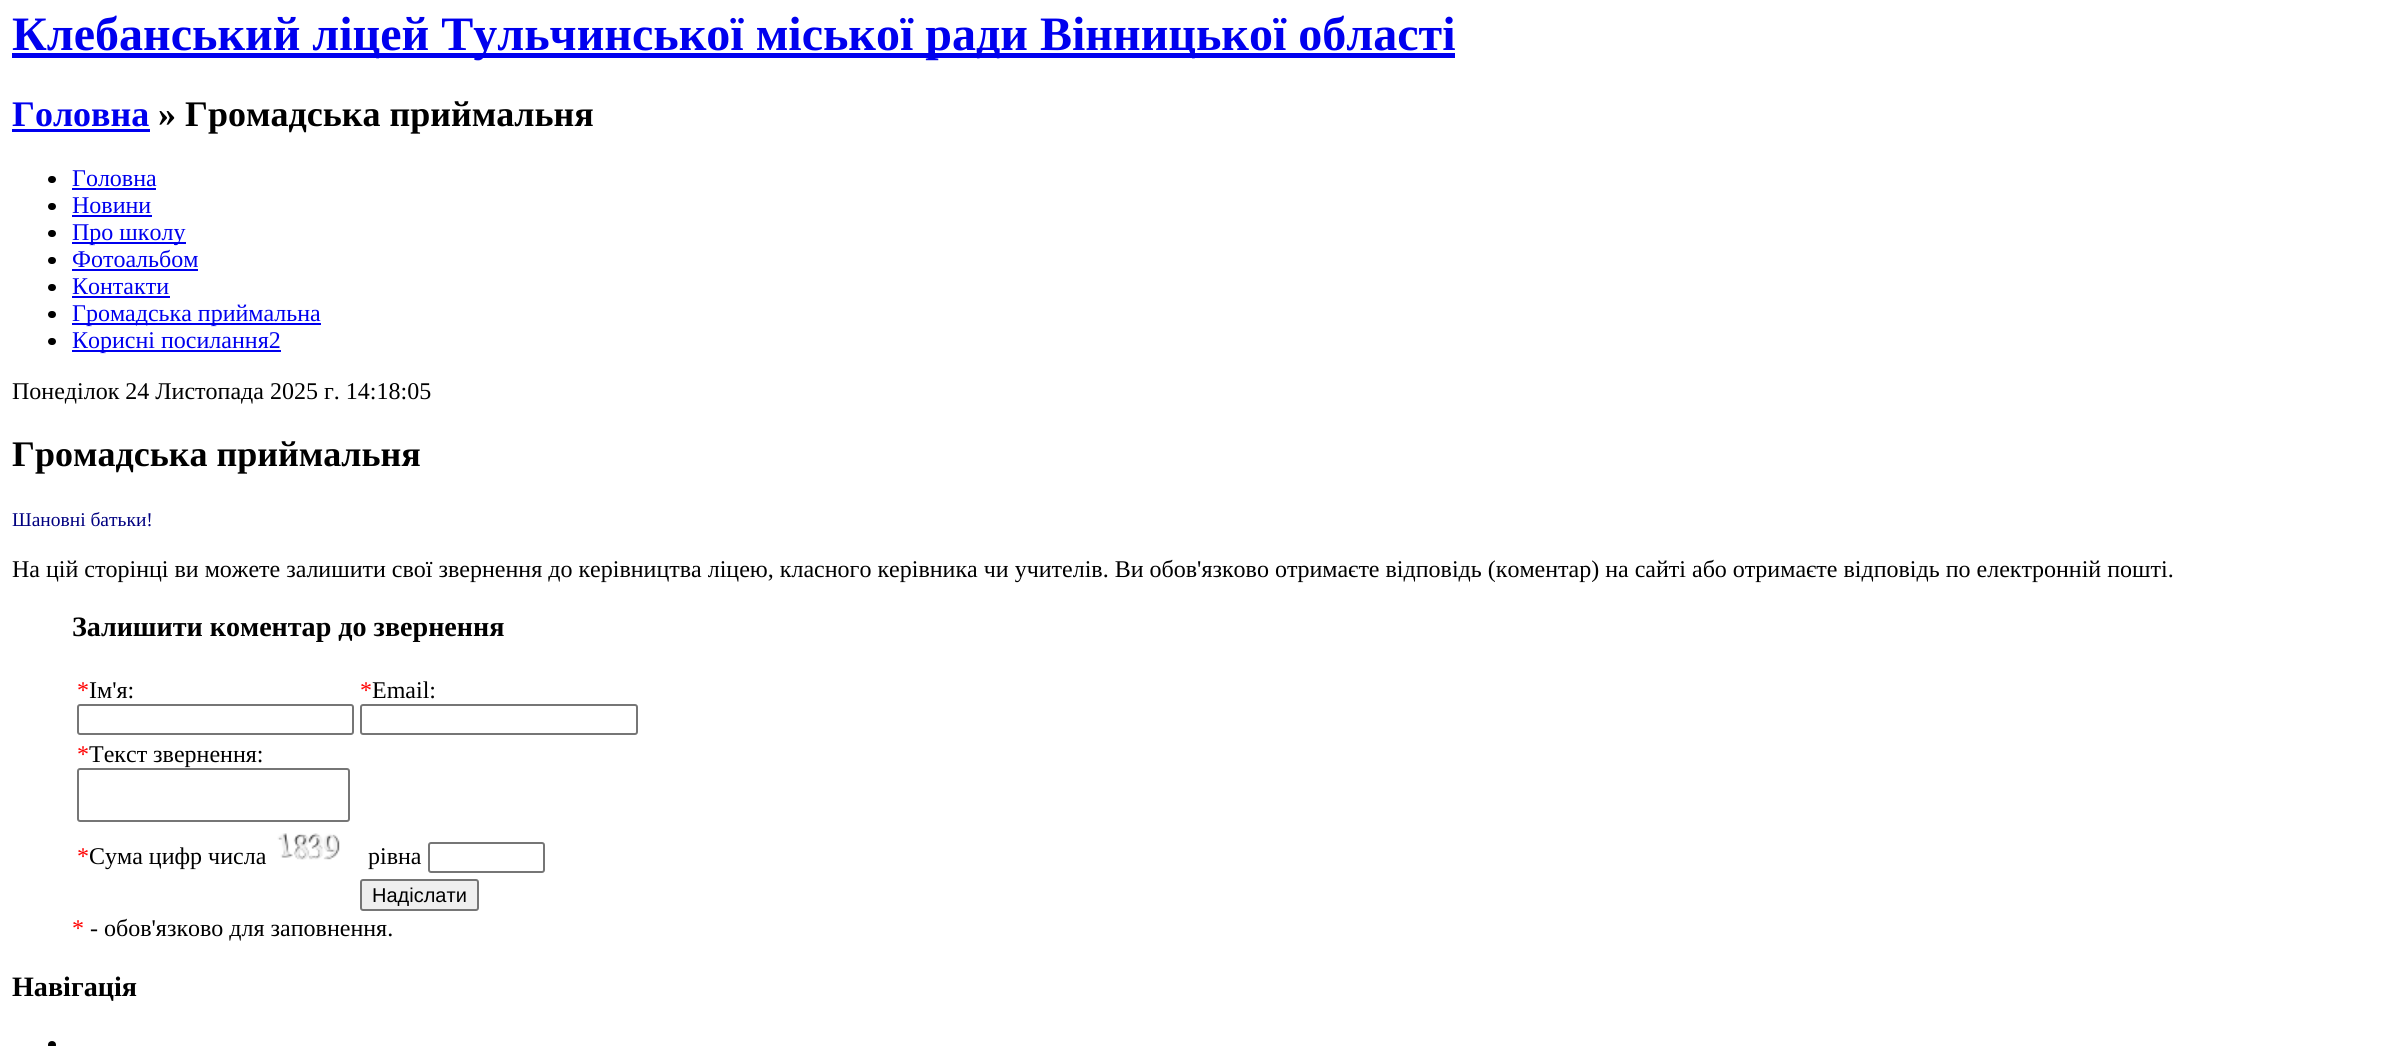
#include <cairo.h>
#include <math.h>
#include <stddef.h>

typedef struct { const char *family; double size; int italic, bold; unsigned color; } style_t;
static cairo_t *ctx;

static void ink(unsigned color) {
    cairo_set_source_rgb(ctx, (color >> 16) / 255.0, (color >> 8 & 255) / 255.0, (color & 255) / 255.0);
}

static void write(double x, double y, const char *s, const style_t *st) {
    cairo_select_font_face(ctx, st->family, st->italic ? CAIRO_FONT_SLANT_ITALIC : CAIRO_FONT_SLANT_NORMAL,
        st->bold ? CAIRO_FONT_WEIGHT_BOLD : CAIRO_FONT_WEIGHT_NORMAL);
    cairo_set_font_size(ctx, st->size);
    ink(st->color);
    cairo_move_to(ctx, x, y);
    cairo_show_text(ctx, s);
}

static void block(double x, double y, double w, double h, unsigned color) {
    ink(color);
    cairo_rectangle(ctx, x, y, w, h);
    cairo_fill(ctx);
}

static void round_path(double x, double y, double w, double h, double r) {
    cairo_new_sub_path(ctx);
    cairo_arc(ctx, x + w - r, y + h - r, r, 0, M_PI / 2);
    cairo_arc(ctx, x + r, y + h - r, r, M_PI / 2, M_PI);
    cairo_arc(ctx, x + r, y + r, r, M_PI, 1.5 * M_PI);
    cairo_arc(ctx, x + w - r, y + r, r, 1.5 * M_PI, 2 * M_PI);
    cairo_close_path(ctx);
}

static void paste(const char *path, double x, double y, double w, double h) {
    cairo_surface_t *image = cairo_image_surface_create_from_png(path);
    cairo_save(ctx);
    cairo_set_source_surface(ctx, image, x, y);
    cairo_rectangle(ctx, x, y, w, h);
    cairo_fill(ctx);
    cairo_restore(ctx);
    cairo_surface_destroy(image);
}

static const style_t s1 = {"Liberation Serif", 48, 0, 1, 0x0000ee};
static const style_t s2 = {"Liberation Serif", 36, 0, 1, 0x0000ee};
static const style_t s3 = {"Liberation Serif", 36, 0, 1, 0x000000};
static const style_t s4 = {"Liberation Serif", 24, 0, 0, 0x0000ee};
static const style_t s5 = {"Liberation Serif", 24, 0, 0, 0x000000};
static const style_t s6 = {"Liberation Serif", 19.5, 0, 0, 0x000080};
static const style_t s7 = {"Liberation Serif", 28.1, 0, 1, 0x000000};
static const style_t s8 = {"Liberation Serif", 24, 0, 0, 0xff0000};
static const style_t s9 = {"Liberation Sans", 20, 0, 0, 0x000000};

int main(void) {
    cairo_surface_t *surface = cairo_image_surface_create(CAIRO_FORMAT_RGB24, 2405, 1046);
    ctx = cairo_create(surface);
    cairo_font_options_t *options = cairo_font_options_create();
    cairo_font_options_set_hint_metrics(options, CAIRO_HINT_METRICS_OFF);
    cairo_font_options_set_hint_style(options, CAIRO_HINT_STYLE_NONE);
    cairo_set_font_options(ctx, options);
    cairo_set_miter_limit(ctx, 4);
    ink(0xffffff);
    cairo_paint(ctx);
    block(12, 53, 1443, 5, 0x0000ee);
    write(12, 50, "Клебанський ліцей Тульчинської міської ради Вінницької області", &s1);
    write(12, 126, "Головна", &s2);
    block(12, 129, 138, 3, 0x0000ee);
    write(158, 126, "» Громадська приймальня", &s3);
    round_path(48, 176, 8, 7, 3.5);
    cairo_fill(ctx);
    write(72, 186, "Головна", &s4);
    block(72, 188, 84, 2, 0x0000ee);
    ink(0x000000);
    round_path(48, 203, 8, 7, 3.5);
    cairo_fill(ctx);
    write(72, 213, "Новини", &s4);
    block(72, 215, 80, 2, 0x0000ee);
    ink(0x000000);
    round_path(48, 230, 8, 7, 3.5);
    cairo_fill(ctx);
    block(72, 242, 114, 2, 0x0000ee);
    write(72, 240, "Про школу", &s4);
    ink(0x000000);
    round_path(48, 257, 8, 7, 3.5);
    cairo_fill(ctx);
    write(72, 267, "Фотоальбом", &s4);
    block(72, 269, 126, 2, 0x0000ee);
    ink(0x000000);
    round_path(48, 284, 8, 7, 3.5);
    cairo_fill(ctx);
    write(72, 294, "Контакти", &s4);
    block(72, 296, 98, 2, 0x0000ee);
    ink(0x000000);
    round_path(48, 311, 8, 7, 3.5);
    cairo_fill(ctx);
    block(72, 323, 249, 2, 0x0000ee);
    write(72, 321, "Громадська приймальна", &s4);
    ink(0x000000);
    round_path(48, 338, 8, 7, 3.5);
    cairo_fill(ctx);
    block(72, 350, 209, 2, 0x0000ee);
    write(72, 348, "Корисні посилання2", &s4);
    write(12, 399, "Понеділок 24 Листопада 2025 г. 14:18:05", &s5);
    write(12, 466, "Громадська приймальня", &s3);
    write(12, 526, "Шановні батьки!", &s6);
    write(12, 577, "На цій сторінці ви можете залишити свої звернення до керівництва ліцею, класного керівника чи учителів. Ви обов'язково отримаєте відповідь (коментар) на сайті або отримаєте відповідь по електронній пошті.", &s5);
    write(72, 636, "Залишити коментар до звернення", &s7);
    write(77, 698, "*", &s8);
    write(89, 698, "Ім'я:", &s5);
    round_path(78, 705, 275, 29, 2);
    ink(0x767676);
    cairo_stroke(ctx);
    write(360, 698, "*", &s8);
    write(372, 698, "Email:", &s5);
    round_path(361, 705, 276, 29, 2);
    ink(0x767676);
    cairo_stroke(ctx);
    write(77, 762, "*", &s8);
    write(89, 762, "Текст звернення:", &s5);
    round_path(78, 769, 271, 52, 2);
    ink(0x767676);
    cairo_stroke(ctx);
    write(77, 864, "*", &s8);
    write(89, 864, "Сума цифр числа", &s5);
    paste("pic1.png", 277, 833, 63, 27);
    write(368, 864, "рівна", &s5);
    round_path(429, 843, 115, 29, 2);
    ink(0x767676);
    cairo_stroke(ctx);
    ink(0xefefef);
    round_path(361, 880, 117, 30, 2);
    cairo_fill_preserve(ctx);
    ink(0x767676);
    cairo_stroke(ctx);
    write(372, 902, "Надіслати", &s9);
    write(72, 936, "*", &s8);
    write(90, 936, "- обов'язково для заповнення.", &s5);
    write(12, 996, "Навігація", &s7);
    cairo_new_path(ctx);
    cairo_arc(ctx, 52, 1045, 4, 0, 2 * M_PI);
    cairo_fill(ctx);
    cairo_surface_write_to_png(surface, "screenshot.png");
    cairo_font_options_destroy(options);
    cairo_destroy(ctx);
    cairo_surface_destroy(surface);
    return 0;
}
